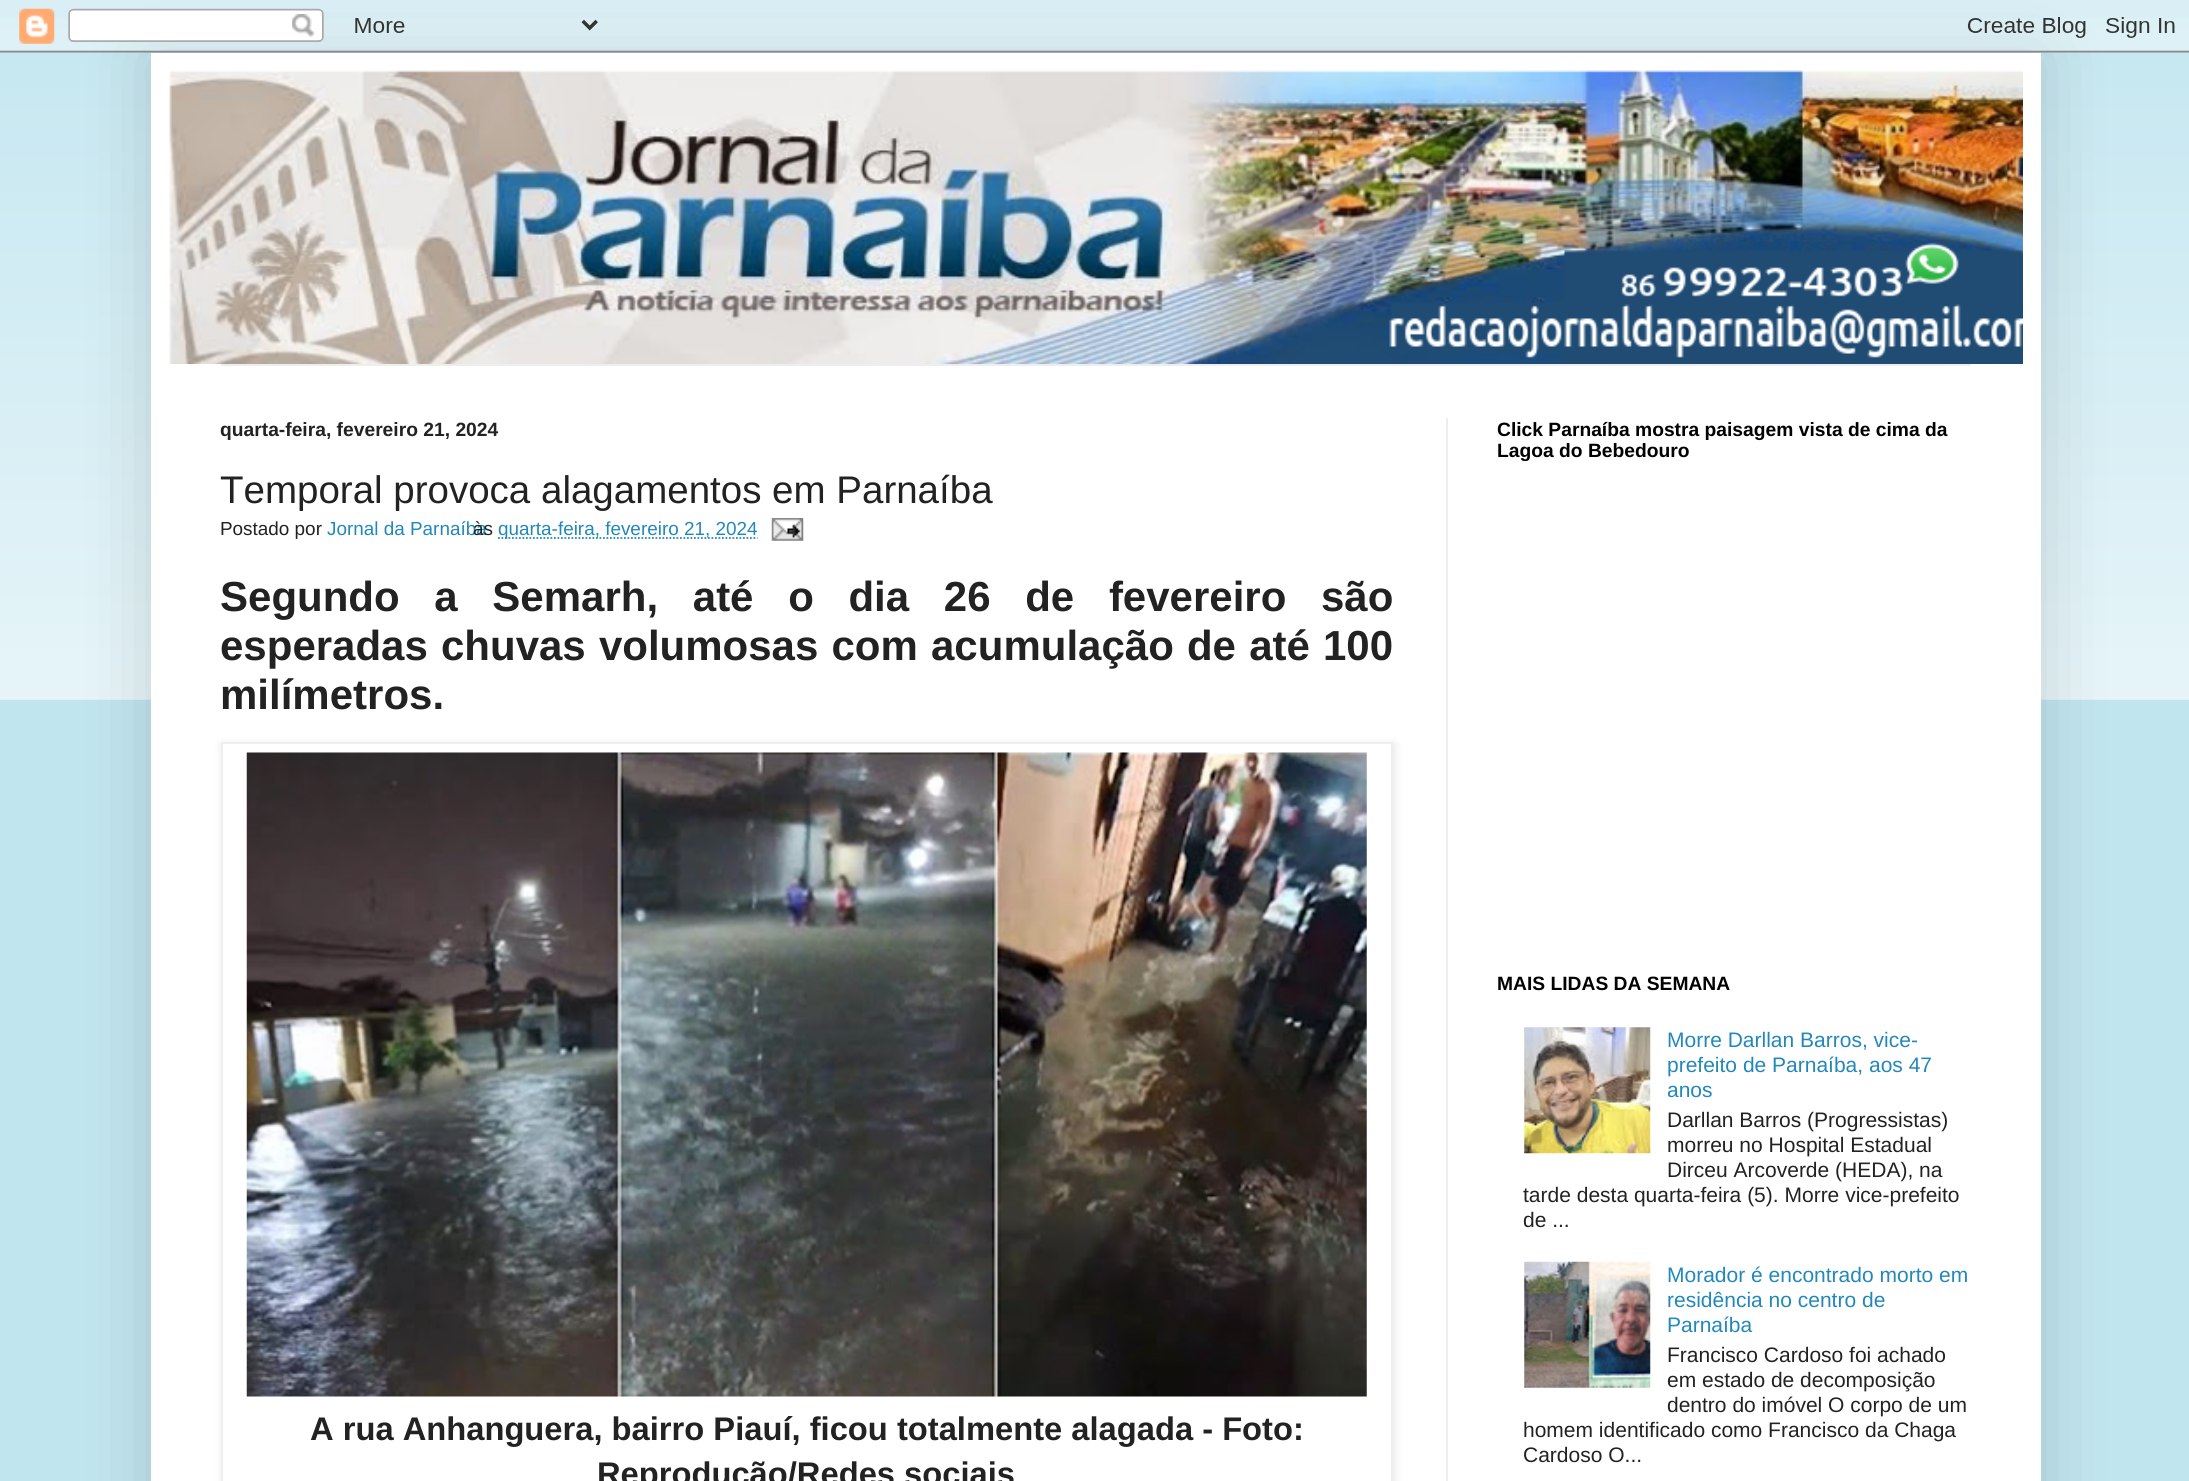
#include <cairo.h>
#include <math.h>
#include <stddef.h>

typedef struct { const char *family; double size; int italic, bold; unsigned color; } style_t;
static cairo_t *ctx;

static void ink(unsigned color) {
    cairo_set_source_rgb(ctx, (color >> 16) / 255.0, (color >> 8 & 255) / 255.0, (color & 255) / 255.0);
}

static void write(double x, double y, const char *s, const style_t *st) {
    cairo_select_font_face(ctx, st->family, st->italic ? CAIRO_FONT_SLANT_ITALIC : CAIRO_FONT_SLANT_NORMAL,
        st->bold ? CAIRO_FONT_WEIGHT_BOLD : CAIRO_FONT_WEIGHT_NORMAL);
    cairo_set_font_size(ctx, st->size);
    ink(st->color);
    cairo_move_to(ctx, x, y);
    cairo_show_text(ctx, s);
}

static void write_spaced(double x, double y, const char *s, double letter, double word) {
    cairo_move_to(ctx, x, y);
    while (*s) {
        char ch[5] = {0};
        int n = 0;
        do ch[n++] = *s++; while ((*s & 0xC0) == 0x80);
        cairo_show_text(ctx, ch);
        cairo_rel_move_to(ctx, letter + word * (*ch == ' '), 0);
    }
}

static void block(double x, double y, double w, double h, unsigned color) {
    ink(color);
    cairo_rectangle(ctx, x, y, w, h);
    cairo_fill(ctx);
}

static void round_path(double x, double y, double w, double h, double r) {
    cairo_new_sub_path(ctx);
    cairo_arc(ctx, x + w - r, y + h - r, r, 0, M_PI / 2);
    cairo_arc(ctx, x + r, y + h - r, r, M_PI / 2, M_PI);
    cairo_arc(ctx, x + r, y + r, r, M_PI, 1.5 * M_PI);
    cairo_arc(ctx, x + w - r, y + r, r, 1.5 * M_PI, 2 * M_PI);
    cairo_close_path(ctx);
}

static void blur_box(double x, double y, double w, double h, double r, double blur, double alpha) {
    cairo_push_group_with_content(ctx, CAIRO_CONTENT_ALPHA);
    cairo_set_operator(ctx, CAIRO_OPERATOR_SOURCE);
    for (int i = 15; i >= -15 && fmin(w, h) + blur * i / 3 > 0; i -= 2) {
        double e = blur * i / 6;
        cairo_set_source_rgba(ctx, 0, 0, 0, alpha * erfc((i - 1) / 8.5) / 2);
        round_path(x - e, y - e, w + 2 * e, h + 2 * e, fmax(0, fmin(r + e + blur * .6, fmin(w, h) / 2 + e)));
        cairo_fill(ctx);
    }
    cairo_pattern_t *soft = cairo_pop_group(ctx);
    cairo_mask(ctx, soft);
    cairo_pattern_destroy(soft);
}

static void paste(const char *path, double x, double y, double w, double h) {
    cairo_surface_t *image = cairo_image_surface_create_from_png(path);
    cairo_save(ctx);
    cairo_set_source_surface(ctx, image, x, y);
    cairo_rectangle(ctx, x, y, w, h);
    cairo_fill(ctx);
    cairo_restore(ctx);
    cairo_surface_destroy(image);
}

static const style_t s1 = {"Liberation Sans", 19.25, 0, 1, 0x222222};
static const style_t s2 = {"Liberation Sans", 38.5, 0, 0, 0x222222};
static const style_t s3 = {"Liberation Sans", 18.9, 0, 0, 0x222222};
static const style_t s4 = {"Liberation Sans", 18.9, 0, 0, 0x2288bb};
static const style_t s5 = {"Liberation Sans", 42, 0, 1, 0x222222};
static const style_t s6 = {"Liberation Sans", 32.7, 0, 1, 0x222222};
static const style_t s7 = {"Liberation Sans", 19.25, 0, 1, 0x000000};
static const style_t s8 = {"Liberation Sans", 21, 0, 0, 0x2288bb};
static const style_t s9 = {"Liberation Sans", 21, 0, 0, 0x222222};

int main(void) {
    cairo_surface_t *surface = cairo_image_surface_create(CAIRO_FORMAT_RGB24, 2189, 1481);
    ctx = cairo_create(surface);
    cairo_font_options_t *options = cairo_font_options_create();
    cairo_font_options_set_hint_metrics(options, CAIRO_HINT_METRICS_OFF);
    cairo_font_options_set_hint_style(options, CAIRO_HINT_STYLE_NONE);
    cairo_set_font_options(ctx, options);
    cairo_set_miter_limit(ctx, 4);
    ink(0xc1e5ef);
    cairo_paint(ctx);
    paste("pic2.png", 0, 18, 2189, 682);
    ink(0x000000);
    blur_box(151, 53, 1890, 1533, 0, 35, 0.15);
    paste("pic1.png", 0, 0, 2189, 53);
    block(151, 53, 1890, 1428, 0xffffff);
    paste("pic3.png", 169, 70, 1854, 294);
    block(221, 364, 1750, 2, 0xeeeeee);
    block(1446, 418, 2, 1063, 0xeeeeee);
    write(220, 436, "quarta-feira, fevereiro 21, 2024", &s1);
    write(220, 503, "Temporal provoca alagamentos em Parnaíba", &s2);
    write(220, 535, "Postado por", &s3);
    write(327, 535, "Jornal da Parnaíba", &s4);
    paste("pic4.png", 771, 518, 33, 23);
    write(473, 535, "às", &s3);
    cairo_new_path(ctx);
    cairo_move_to(ctx, 498, 538);
    cairo_line_to(ctx, 757.5, 538);
    ink(0x2288bb);
    cairo_set_line_width(ctx, 1.8);
    cairo_set_dash(ctx, (double[]){1.75, 1.75}, 2, 0);
    cairo_stroke(ctx);
    write(498, 535, "quarta-feira, fevereiro 21, 2024", &s4);
    cairo_select_font_face(ctx, "Liberation Sans", CAIRO_FONT_SLANT_NORMAL, CAIRO_FONT_WEIGHT_BOLD);
    cairo_set_font_size(ctx, 42);
    ink(0x222222);
    write_spaced(220, 611, "Segundo a Semarh, até o dia 26 de fevereiro são", 0, 23);
    write_spaced(220, 660, "esperadas chuvas volumosas com acumulação de até 100", 0, 1.5);
    write(220, 709, "milímetros.", &s5);
    cairo_save(ctx);
    cairo_set_fill_rule(ctx, CAIRO_FILL_RULE_EVEN_ODD);
    cairo_new_path(ctx);
    cairo_move_to(ctx, 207, 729);
    cairo_line_to(ctx, 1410, 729);
    cairo_line_to(ctx, 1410, 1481);
    cairo_line_to(ctx, 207, 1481);
    cairo_close_path(ctx);
    cairo_move_to(ctx, 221, 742);
    cairo_line_to(ctx, 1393, 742);
    cairo_line_to(ctx, 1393, 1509);
    cairo_line_to(ctx, 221, 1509);
    cairo_close_path(ctx);
    cairo_clip(ctx);
    ink(0x000000);
    blur_box(222, 744, 1173, 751, 0, 4.5, 0.1);
    cairo_restore(ctx);
    cairo_rectangle(ctx, 222, 743, 1170, 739);
    ink(0xeeeeee);
    cairo_set_line_width(ctx, 2);
    cairo_set_dash(ctx, NULL, 0, 0);
    cairo_stroke(ctx);
    paste("pic5.png", 246, 752, 1121, 645);
    write(310, 1440, "A rua Anhanguera, bairro Piauí, ficou totalmente alagada - Foto:", &s6);
    write(597, 1485, "Reprodução/Redes sociais", &s6);
    write(1497, 436, "Click Parnaíba mostra paisagem vista de cima da", &s7);
    write(1497, 457, "Lagoa do Bebedouro", &s7);
    write(1497, 990, "MAIS LIDAS DA SEMANA", &s7);
    paste("pic6.png", 1524, 1027, 127, 127);
    write(1667, 1047, "Morre Darllan Barros, vice-", &s8);
    write(1667, 1072, "prefeito de Parnaíba, aos 47", &s8);
    write(1667, 1097, "anos", &s8);
    write(1667, 1127, "Darllan Barros (Progressistas)", &s9);
    write(1667, 1152, "morreu no Hospital Estadual", &s9);
    write(1667, 1177, "Dirceu Arcoverde (HEDA), na", &s9);
    write(1523, 1202, "tarde desta quarta-feira (5). Morre vice-prefeito", &s9);
    write(1523, 1227, "de ...", &s9);
    paste("pic7.png", 1524, 1261, 127, 127);
    write(1667, 1282, "Morador é encontrado morto em", &s8);
    write(1667, 1307, "residência no centro de", &s8);
    write(1667, 1332, "Parnaíba", &s8);
    write(1667, 1362, "Francisco Cardoso foi achado", &s9);
    write(1667, 1387, "em estado de decomposição", &s9);
    write(1667, 1412, "dentro do imóvel O corpo de um", &s9);
    write(1523, 1437, "homem identificado como Francisco da Chaga", &s9);
    write(1523, 1462, "Cardoso O...", &s9);
    cairo_surface_write_to_png(surface, "screenshot.png");
    cairo_font_options_destroy(options);
    cairo_destroy(ctx);
    cairo_surface_destroy(surface);
    return 0;
}
